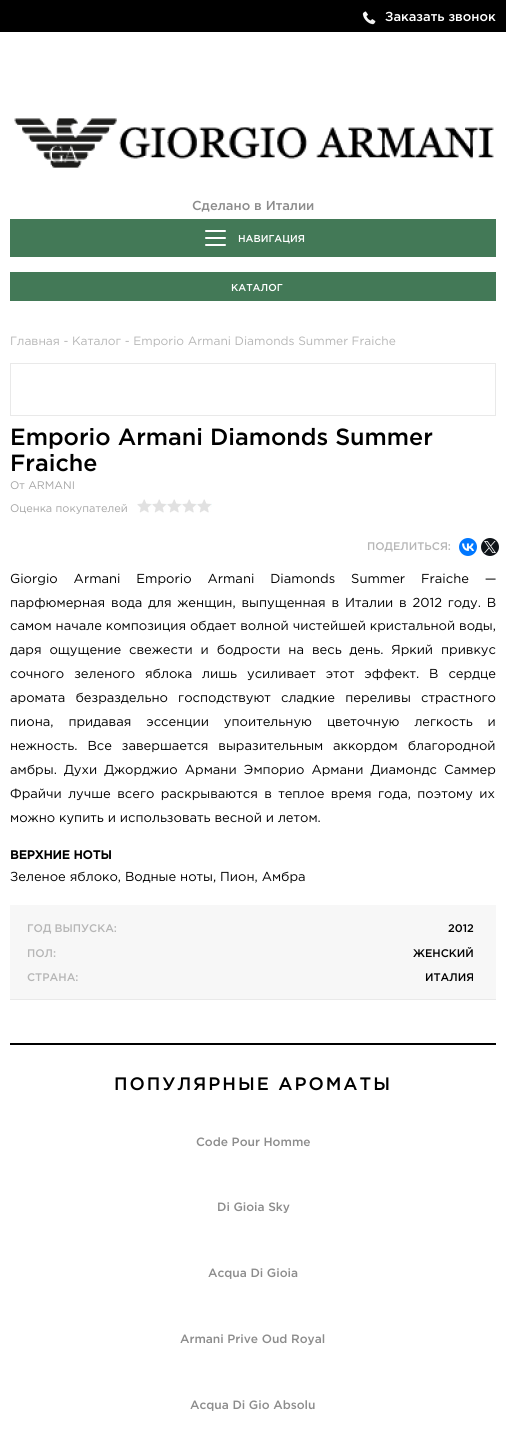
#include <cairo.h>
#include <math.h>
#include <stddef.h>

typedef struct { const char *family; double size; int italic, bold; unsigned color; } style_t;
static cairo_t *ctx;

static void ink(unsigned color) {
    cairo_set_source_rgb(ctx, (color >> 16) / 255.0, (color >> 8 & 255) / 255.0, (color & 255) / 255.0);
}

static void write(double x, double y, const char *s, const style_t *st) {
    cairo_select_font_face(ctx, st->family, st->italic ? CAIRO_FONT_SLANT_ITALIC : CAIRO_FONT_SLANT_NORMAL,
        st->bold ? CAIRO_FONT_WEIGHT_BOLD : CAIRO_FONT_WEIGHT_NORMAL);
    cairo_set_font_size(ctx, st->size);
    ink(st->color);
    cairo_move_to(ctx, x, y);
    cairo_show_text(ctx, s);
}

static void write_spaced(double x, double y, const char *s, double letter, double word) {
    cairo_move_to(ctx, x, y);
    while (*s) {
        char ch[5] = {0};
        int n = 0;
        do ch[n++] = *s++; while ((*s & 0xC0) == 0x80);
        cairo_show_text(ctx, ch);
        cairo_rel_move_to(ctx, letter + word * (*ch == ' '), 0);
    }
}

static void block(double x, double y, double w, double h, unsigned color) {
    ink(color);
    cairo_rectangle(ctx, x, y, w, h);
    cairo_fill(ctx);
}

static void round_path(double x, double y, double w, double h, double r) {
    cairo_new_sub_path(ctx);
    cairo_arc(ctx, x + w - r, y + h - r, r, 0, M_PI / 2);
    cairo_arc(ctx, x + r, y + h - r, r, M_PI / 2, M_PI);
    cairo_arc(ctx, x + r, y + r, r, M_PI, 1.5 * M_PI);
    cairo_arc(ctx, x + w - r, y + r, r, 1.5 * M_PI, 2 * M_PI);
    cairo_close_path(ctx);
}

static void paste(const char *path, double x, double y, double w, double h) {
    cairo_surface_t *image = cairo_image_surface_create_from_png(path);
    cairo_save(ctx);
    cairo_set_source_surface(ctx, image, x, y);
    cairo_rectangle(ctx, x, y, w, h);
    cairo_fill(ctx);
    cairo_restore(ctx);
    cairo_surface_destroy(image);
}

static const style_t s1 = {"Gotham Medium", 13, 0, 0, 0xffffff};
static const style_t s2 = {"Gotham Medium", 13, 0, 0, 0x8c8c8c};
static const style_t s3 = {"Gotham Medium", 10, 0, 0, 0xffffff};
static const style_t s4 = {"Gotham", 12, 0, 0, 0xb6b6b6};
static const style_t s5 = {"Gotham Medium", 23.4, 0, 0, 0x000000};
static const style_t s6 = {"Gotham", 11, 0, 0, 0xa5a5a5};
static const style_t s7 = {"Gotham Medium", 11, 0, 0, 0xb6b6b6};
static const style_t s8 = {"Gotham", 13, 0, 0, 0x000000};
static const style_t s9 = {"Gotham", 12, 0, 1, 0x000000};
static const style_t s10 = {"Gotham Medium", 11, 0, 0, 0x000000};
static const style_t s11 = {"Gotham Medium", 12, 0, 0, 0x8c8c8c};

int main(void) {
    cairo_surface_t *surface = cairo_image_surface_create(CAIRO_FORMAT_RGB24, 506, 1432);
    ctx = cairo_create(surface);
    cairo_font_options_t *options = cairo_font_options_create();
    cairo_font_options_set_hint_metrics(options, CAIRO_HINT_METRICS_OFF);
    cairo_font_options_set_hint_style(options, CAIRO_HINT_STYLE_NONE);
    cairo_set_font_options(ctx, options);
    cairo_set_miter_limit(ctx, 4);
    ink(0xffffff);
    cairo_paint(ctx);
    block(0, 0, 506, 32, 0x000000);
    paste("pic1.png", 362, 11, 14, 14);
    write(385, 21, "Заказать звонок", &s1);
    paste("pic2.png", 14, 118, 480, 50);
    write(192, 210, "Сделано в Италии", &s2);
    block(10, 219, 486, 38, 0x437957);
    ink(0xffffff);
    round_path(205, 230, 21, 2, 1);
    cairo_fill(ctx);
    round_path(205, 237, 21, 2, 1);
    cairo_fill(ctx);
    round_path(205, 244, 21, 2, 1);
    cairo_fill(ctx);
    write(238, 242, "НАВИГАЦИЯ", &s3);
    block(10, 272, 486, 29, 0x437957);
    write(231, 291, "КАТАЛОГ", &s3);
    write(10, 345, "Главная - Каталог - Emporio Armani Diamonds Summer Fraiche", &s4);
    cairo_rectangle(ctx, 10.5, 363.5, 485, 52);
    ink(0xe9e9e9);
    cairo_set_line_width(ctx, 1);
    cairo_stroke(ctx);
    write(10, 445, "Emporio Armani Diamonds Summer", &s5);
    write(10, 471, "Fraiche", &s5);
    write(10, 489, "От ARMANI", &s6);
    write(10, 512, "Оценка покупателей", &s6);
    paste("pic3.png", 137, 499, 15, 14);
    paste("pic3.png", 152, 499, 15, 14);
    paste("pic3.png", 167, 499, 15, 14);
    paste("pic3.png", 182, 499, 15, 14);
    paste("pic3.png", 197, 499, 15, 14);
    write(367, 550, "ПОДЕЛИТЬСЯ:", &s7);
    ink(0x0077ff);
    cairo_new_path(ctx);
    cairo_arc(ctx, 468, 547, 9, 0, 2 * M_PI);
    cairo_fill(ctx);
    paste("pic4.png", 462, 543, 12, 8);
    ink(0x0f1419);
    cairo_arc(ctx, 490, 547, 9, 0, 2 * M_PI);
    cairo_fill(ctx);
    paste("pic5.png", 484, 541, 12, 12);
    cairo_select_font_face(ctx, "Gotham", CAIRO_FONT_SLANT_NORMAL, CAIRO_FONT_WEIGHT_NORMAL);
    cairo_set_font_size(ctx, 13);
    ink(0x000000);
    write_spaced(10, 583, "Giorgio Armani Emporio Armani Diamonds Summer Fraiche —", 0, 12);
    write_spaced(10, 607, "парфюмерная вода для женщин, выпущенная в Италии в 2012 году. В", 0, 1.9);
    write(10, 630, "самом начале композиция обдает волной чистейшей кристальной воды,", &s8);
    write_spaced(10, 654, "даря ощущение свежести и бодрости на весь день. Яркий привкус", 0, 4);
    write_spaced(10, 678, "сочного зеленого яблока лишь усиливает этот эффект. В сердце", 0, 6);
    write_spaced(10, 702, "аромата безраздельно господствуют сладкие переливы страстного", 0, 6.25);
    write_spaced(10, 726, "пиона, придавая эссенции упоительную цветочную легкость и", 0, 11);
    write_spaced(10, 750, "нежность. Все завершается выразительным аккордом благородной", 0, 6);
    write_spaced(10, 774, "амбры. Духи Джорджио Армани Эмпорио Армани Диамондс Саммер", 0, 3.25);
    write_spaced(10, 798, "Фрайчи лучше всего раскрываются в теплое время года, поэтому их", 0, 2.5);
    write(10, 822, "можно купить и использовать весной и летом.", &s8);
    write(10, 859, "ВЕРХНИЕ НОТЫ", &s9);
    write(10, 881, "Зеленое яблоко, Водные ноты, Пион, Амбра", &s8);
    block(10, 905, 486, 94, 0xf7f7f7);
    block(10, 999, 486, 1, 0xe9e9e9);
    write(27, 932, "ГОД ВЫПУСКА:", &s7);
    write(448, 932, "2012", &s10);
    write(27, 957, "ПОЛ:", &s7);
    write(413, 957, "ЖЕНСКИЙ", &s10);
    write(27, 981, "СТРАНА:", &s7);
    write(425, 981, "ИТАЛИЯ", &s10);
    block(10, 1043, 486, 2, 0x000000);
    cairo_set_font_size(ctx, 18);
    write_spaced(114, 1090, "ПОПУЛЯРНЫЕ АРОМАТЫ", 2, 0);
    write(196, 1146, "Code Pour Homme", &s11);
    write(217, 1211, "Di Gioia Sky", &s11);
    write(208, 1277, "Acqua Di Gioia", &s11);
    write(180, 1343, "Armani Prive Oud Royal", &s11);
    write(190, 1409, "Acqua Di Gio Absolu", &s11);
    cairo_surface_write_to_png(surface, "screenshot.png");
    cairo_font_options_destroy(options);
    cairo_destroy(ctx);
    cairo_surface_destroy(surface);
    return 0;
}
